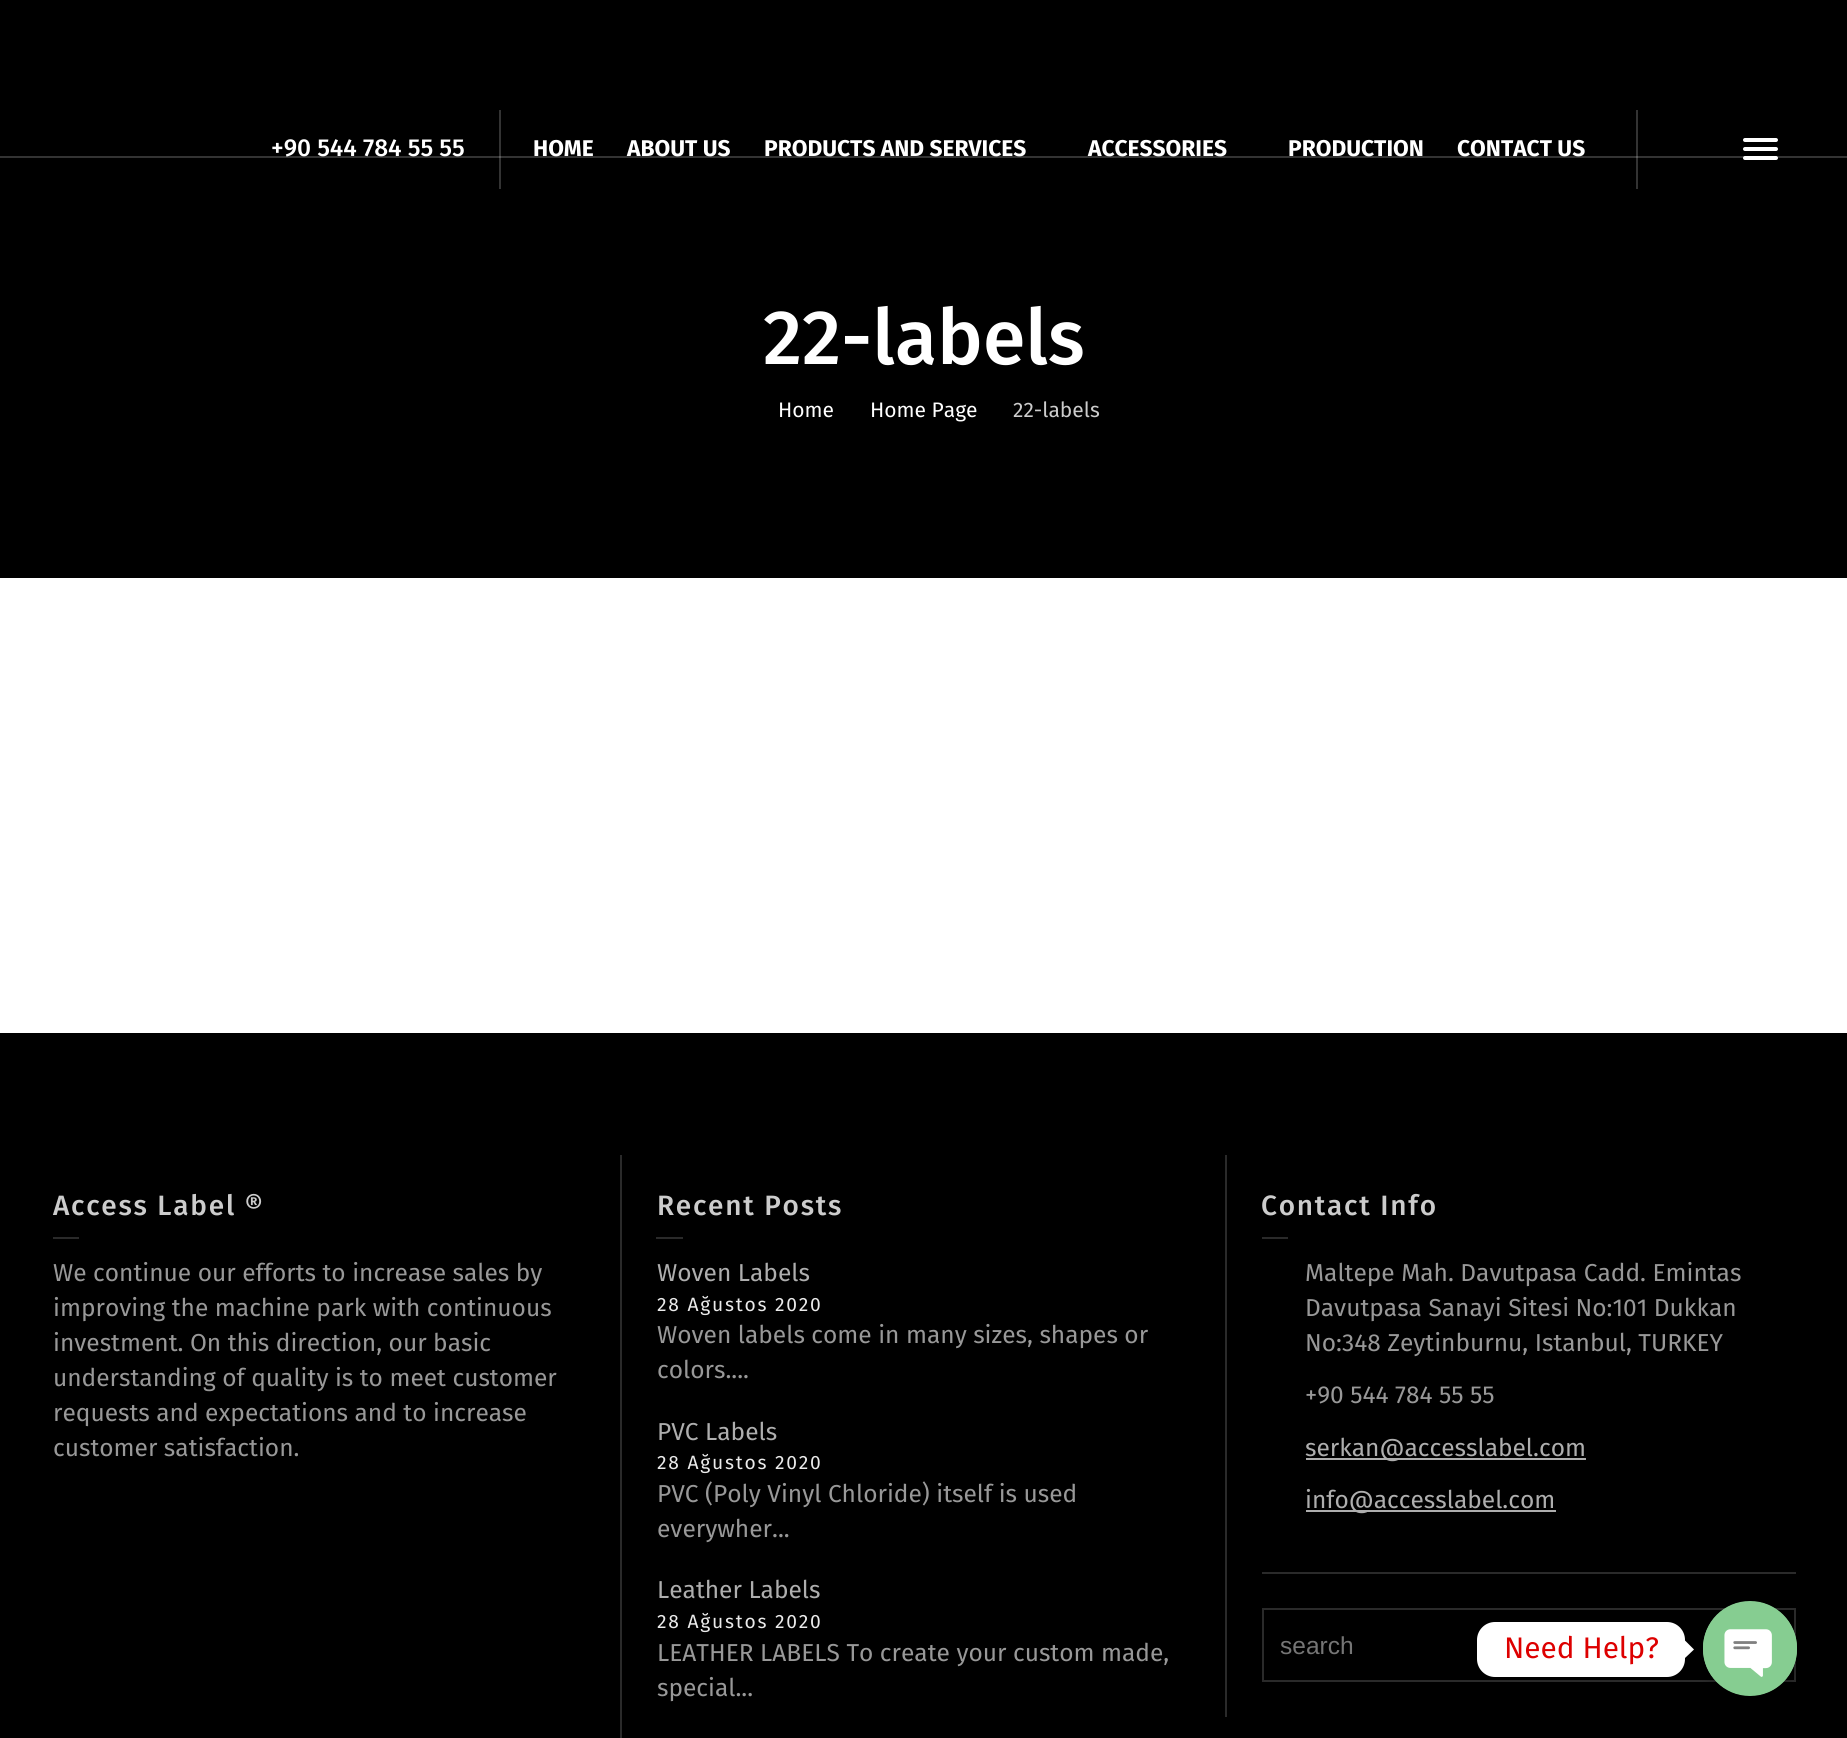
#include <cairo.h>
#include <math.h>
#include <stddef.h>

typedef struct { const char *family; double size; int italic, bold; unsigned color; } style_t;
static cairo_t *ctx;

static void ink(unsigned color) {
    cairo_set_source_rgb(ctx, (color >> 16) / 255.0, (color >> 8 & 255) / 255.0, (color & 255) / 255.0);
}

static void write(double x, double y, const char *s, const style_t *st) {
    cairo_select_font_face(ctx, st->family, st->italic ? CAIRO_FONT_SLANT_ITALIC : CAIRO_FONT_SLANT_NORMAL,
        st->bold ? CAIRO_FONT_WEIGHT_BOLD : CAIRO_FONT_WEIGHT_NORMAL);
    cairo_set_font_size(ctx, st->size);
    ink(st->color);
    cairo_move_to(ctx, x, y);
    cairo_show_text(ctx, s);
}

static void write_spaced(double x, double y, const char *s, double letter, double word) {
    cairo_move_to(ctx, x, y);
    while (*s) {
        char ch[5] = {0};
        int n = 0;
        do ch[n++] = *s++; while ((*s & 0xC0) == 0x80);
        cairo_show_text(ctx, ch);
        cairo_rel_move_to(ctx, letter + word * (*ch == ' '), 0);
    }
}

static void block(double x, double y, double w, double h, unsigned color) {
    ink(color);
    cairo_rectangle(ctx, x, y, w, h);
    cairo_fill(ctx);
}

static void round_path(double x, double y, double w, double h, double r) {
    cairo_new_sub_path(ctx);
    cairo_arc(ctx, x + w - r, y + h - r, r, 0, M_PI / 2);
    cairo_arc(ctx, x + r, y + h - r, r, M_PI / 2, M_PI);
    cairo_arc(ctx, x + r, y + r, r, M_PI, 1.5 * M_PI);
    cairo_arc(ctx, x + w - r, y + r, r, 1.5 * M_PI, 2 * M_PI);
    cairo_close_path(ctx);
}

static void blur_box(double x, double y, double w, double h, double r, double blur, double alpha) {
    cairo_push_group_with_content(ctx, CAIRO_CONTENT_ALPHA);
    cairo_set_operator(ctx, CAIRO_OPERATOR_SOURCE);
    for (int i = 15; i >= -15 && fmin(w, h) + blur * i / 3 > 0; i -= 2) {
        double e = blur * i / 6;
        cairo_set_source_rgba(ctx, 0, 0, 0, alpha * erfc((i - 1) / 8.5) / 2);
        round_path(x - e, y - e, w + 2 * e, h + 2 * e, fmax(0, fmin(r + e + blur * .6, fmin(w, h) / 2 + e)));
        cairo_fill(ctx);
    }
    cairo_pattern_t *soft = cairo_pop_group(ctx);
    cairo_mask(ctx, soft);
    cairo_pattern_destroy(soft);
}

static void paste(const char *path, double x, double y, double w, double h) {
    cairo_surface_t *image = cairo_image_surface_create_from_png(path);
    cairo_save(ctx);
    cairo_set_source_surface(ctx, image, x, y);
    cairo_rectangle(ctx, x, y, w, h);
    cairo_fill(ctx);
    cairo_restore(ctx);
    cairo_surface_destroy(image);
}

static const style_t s1 = {"Fira Sans Medium", 24.5, 0, 0, 0xffffff};
static const style_t s2 = {"Fira Sans", 22.75, 0, 1, 0xffffff};
static const style_t s3 = {"Fira Sans Medium", 77, 0, 0, 0xffffff};
static const style_t s4 = {"Fira Sans", 21, 0, 0, 0xffffff};
static const style_t s5 = {"Fira Sans", 21, 0, 0, 0xcccccc};
static const style_t s6 = {"Fira Sans", 24.5, 0, 0, 0x989898};
static const style_t s7 = {"Fira Sans", 24.5, 0, 0, 0xaeaeae};
static const style_t s8 = {"Liberation Sans", 24.5, 0, 0, 0x757575};
static const style_t s9 = {"Fira Sans", 29.75, 0, 0, 0xdd0000};

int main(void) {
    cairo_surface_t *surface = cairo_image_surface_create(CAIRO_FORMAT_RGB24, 1847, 1738);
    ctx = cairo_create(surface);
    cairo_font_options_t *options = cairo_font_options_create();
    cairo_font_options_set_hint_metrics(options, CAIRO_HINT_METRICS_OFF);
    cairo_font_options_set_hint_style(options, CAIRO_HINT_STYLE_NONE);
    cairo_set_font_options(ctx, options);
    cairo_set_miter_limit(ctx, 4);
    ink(0xffffff);
    cairo_paint(ctx);
    block(0, 0, 1847, 578, 0x000000);
    block(1636, 110, 2, 79, 0x333333);
    block(499, 110, 2, 79, 0x333333);
    block(0, 156, 1847, 2, 0x333333);
    block(1636, 156, 2, 2, 0x5c5c5c);
    block(499, 156, 2, 2, 0x5c5c5c);
    write(271, 156, "+90 544 784 55 55", &s1);
    write(533, 156, "HOME", &s2);
    write(627, 156, "ABOUT US", &s2);
    write(764, 156, "PRODUCTS AND SERVICES", &s2);
    write(1088, 156, "ACCESSORIES", &s2);
    write(1288, 156, "PRODUCTION", &s2);
    write(1457, 156, "CONTACT US", &s2);
    round_path(1743, 138, 35, 4, 2);
    cairo_fill(ctx);
    round_path(1743, 147, 35, 4, 2);
    cairo_fill(ctx);
    round_path(1743, 156, 35, 4, 2);
    cairo_fill(ctx);
    write(763, 364, "22-labels", &s3);
    write(778, 417, "Home", &s4);
    write(870, 417, "Home Page", &s4);
    write(1013, 417, "22-labels", &s5);
    block(0, 1033, 1847, 705, 0x000000);
    cairo_select_font_face(ctx, "Fira Sans Medium", CAIRO_FONT_SLANT_NORMAL, CAIRO_FONT_WEIGHT_NORMAL);
    cairo_set_font_size(ctx, 28);
    ink(0xcccccc);
    write_spaced(53, 1215, "Access Label ®", 1.75, 0);
    block(53, 1237, 26, 2, 0x2a2a2a);
    write(53, 1281, "We continue our efforts to increase sales by", &s6);
    write(53, 1316, "improving the machine park with continuous", &s6);
    write(53, 1351, "investment. On this direction, our basic", &s6);
    write(53, 1386, "understanding of quality is to meet customer", &s6);
    write(53, 1421, "requests and expectations and to increase", &s6);
    write(53, 1456, "customer satisfaction.", &s6);
    block(620, 1155, 2, 583, 0x2a2a2a);
    cairo_select_font_face(ctx, "Fira Sans Medium", CAIRO_FONT_SLANT_NORMAL, CAIRO_FONT_WEIGHT_NORMAL);
    cairo_set_font_size(ctx, 28);
    ink(0xcccccc);
    write_spaced(657, 1215, "Recent Posts", 1.75, 0);
    block(656, 1237, 27, 2, 0x2a2a2a);
    write(657, 1281, "Woven Labels", &s7);
    cairo_set_font_size(ctx, 19.25);
    ink(0xeaeaea);
    write_spaced(657, 1311, "28 Ağustos 2020", 1.75, 0);
    write(657, 1343, "Woven labels come in many sizes, shapes or", &s6);
    write(657, 1378, "colors....", &s6);
    write(657, 1440, "PVC Labels", &s7);
    cairo_set_font_size(ctx, 19.25);
    ink(0xeaeaea);
    write_spaced(657, 1469, "28 Ağustos 2020", 1.75, 0);
    write(657, 1502, "PVC (Poly Vinyl Chloride) itself is used", &s6);
    write(657, 1537, "everywher...", &s6);
    write(657, 1598, "Leather Labels", &s7);
    cairo_set_font_size(ctx, 19.25);
    ink(0xeaeaea);
    write_spaced(657, 1628, "28 Ağustos 2020", 1.75, 0);
    write(657, 1661, "LEATHER LABELS To create your custom made,", &s6);
    write(657, 1696, "special...", &s6);
    block(1225, 1155, 2, 562, 0x2a2a2a);
    cairo_select_font_face(ctx, "Fira Sans Medium", CAIRO_FONT_SLANT_NORMAL, CAIRO_FONT_WEIGHT_NORMAL);
    cairo_set_font_size(ctx, 28);
    ink(0xcccccc);
    write_spaced(1261, 1215, "Contact Info", 1.75, 0);
    block(1262, 1237, 26, 2, 0x2a2a2a);
    write(1305, 1281, "Maltepe Mah. Davutpasa Cadd. Emintas", &s6);
    write(1305, 1316, "Davutpasa Sanayi Sitesi No:101 Dukkan", &s6);
    write(1305, 1351, "No:348 Zeytinburnu, Istanbul, TURKEY", &s6);
    write(1305, 1403, "+90 544 784 55 55", &s6);
    block(1306, 1458, 280, 2, 0xaeaeae);
    write(1305, 1456, "serkan@accesslabel.com", &s7);
    block(1306, 1510, 250, 2, 0xaeaeae);
    write(1305, 1508, "info@accesslabel.com", &s7);
    block(1262, 1572, 534, 2, 0x2a2a2a);
    cairo_rectangle(ctx, 1263, 1609, 532, 72);
    cairo_stroke(ctx);
    write(1280, 1654, "search", &s8);
    ink(0xffffff);
    round_path(1477, 1622, 208, 55, 18);
    cairo_fill(ctx);
    write(1504, 1658, "Need Help?", &s9);
    ink(0xffffff);
    cairo_new_path(ctx);
    cairo_move_to(ctx, 1685, 1658);
    cairo_line_to(ctx, 1685, 1640.5);
    cairo_line_to(ctx, 1694, 1649.5);
    cairo_close_path(ctx);
    cairo_fill(ctx);
    ink(0x000000);
    blur_box(1703, 1607, 94, 94, 47, 5, 0.25);
    ink(0x86cd91);
    round_path(1703, 1601, 94, 95, 47);
    cairo_fill(ctx);
    paste("pic1.png", 1703, 1602, 94, 93);
    cairo_surface_write_to_png(surface, "screenshot.png");
    cairo_font_options_destroy(options);
    cairo_destroy(ctx);
    cairo_surface_destroy(surface);
    return 0;
}
